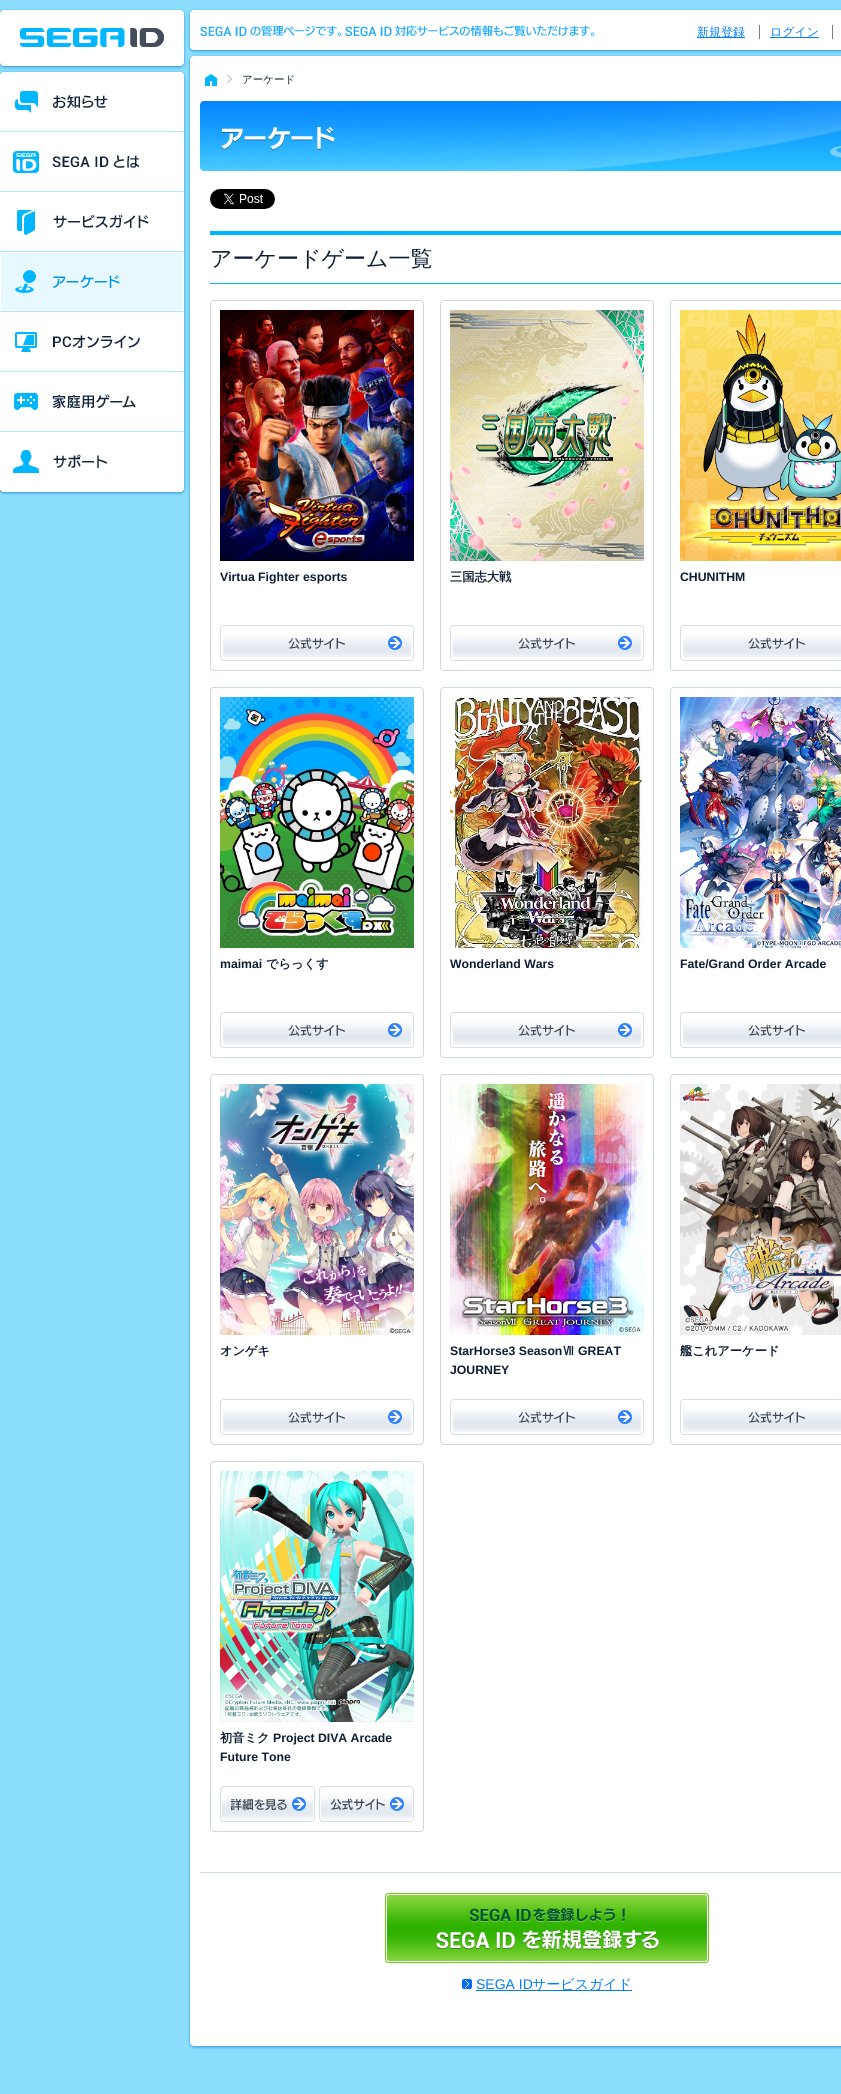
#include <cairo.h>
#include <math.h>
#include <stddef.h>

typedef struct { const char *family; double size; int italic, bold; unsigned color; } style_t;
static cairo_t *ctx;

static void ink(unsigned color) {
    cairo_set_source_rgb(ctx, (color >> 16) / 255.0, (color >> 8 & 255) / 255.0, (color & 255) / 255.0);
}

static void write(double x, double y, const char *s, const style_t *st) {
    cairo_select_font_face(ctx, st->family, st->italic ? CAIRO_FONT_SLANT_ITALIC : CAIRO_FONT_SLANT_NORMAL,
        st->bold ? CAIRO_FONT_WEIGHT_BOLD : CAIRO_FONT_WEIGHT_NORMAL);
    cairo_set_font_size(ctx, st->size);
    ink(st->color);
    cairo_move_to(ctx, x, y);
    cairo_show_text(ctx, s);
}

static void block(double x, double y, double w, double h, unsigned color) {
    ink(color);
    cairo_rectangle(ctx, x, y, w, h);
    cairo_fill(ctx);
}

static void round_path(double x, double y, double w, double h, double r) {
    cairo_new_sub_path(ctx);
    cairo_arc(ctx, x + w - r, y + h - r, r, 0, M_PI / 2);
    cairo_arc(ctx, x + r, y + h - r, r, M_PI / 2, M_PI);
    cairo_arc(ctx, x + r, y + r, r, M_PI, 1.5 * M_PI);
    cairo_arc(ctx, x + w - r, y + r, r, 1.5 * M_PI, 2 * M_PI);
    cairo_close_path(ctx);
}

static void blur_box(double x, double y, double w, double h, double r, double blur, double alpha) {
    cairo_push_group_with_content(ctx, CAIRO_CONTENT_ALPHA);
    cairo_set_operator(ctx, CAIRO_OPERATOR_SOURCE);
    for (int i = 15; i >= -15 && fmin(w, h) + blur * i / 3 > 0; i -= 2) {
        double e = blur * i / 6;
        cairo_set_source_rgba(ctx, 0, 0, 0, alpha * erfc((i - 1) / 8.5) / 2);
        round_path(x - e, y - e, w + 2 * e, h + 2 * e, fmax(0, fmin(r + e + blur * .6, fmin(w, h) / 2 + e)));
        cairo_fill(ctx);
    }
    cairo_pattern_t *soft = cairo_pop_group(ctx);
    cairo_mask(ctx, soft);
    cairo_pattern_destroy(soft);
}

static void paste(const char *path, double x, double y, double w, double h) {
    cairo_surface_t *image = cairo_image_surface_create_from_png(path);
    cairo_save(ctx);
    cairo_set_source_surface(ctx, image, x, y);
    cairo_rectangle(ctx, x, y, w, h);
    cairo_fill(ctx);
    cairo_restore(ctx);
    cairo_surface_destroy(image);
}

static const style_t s1 = {"WenQuanYi Zen Hei Medium", 12, 0, 0, 0x007cfa};
static const style_t s2 = {"WenQuanYi Zen Hei Medium", 10.5, 0, 0, 0x0d1e34};
static const style_t s3 = {"WenQuanYi Zen Hei Medium", 22, 0, 0, 0x0d1e34};
static const style_t s4 = {"Liberation Sans", 12.25, 0, 1, 0x0d1e34};
static const style_t s5 = {"WenQuanYi Zen Hei", 12.25, 0, 1, 0x0d1e34};
static const style_t s6 = {"Liberation Sans", 14, 0, 0, 0x007cfa};
static const style_t s7 = {"WenQuanYi Zen Hei Medium", 14, 0, 0, 0x007cfa};

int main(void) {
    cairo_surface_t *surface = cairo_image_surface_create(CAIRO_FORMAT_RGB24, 841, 2094);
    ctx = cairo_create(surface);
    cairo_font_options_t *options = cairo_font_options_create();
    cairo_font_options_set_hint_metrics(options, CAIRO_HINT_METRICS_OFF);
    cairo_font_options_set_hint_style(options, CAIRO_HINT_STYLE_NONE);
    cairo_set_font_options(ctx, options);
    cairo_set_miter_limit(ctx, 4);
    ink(0x8cdeff);
    cairo_paint(ctx);
    ink(0x2e96d8);
    blur_box(0, 11, 184, 56, 4, 1.5, 1);
    ink(0xffffff);
    round_path(0, 10, 184, 56, 4);
    cairo_fill(ctx);
    paste("pic1.png", 20, 28, 144, 19);
    ink(0x2e96d8);
    blur_box(0, 73, 184, 420, 4, 1.5, 1);
    ink(0xffffff);
    round_path(0, 72, 184, 420, 4);
    cairo_fill(ctx);
    paste("pic2.png", 0, 72, 184, 60);
    paste("pic3.png", 0, 72, 184, 58);
    paste("pic4.png", 0, 133, 184, 59);
    paste("pic5.png", 1, 133, 182, 57);
    paste("pic6.png", 0, 193, 184, 59);
    paste("pic7.png", 1, 193, 182, 57);
    paste("pic8.png", 0, 253, 184, 59);
    paste("pic9.png", 0, 313, 184, 59);
    paste("pic10.png", 1, 313, 182, 57);
    paste("pic11.png", 0, 373, 184, 59);
    paste("pic12.png", 1, 373, 182, 57);
    paste("pic13.png", 0, 488, 184, 4);
    paste("pic14.png", 0, 433, 184, 59);
    ink(0x2e96d8);
    blur_box(190, 57, 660, 1990, 4, 1.5, 1);
    ink(0xffffff);
    round_path(190, 56, 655, 1990, 4);
    cairo_fill(ctx);
    ink(0x2e96d8);
    blur_box(190, 11, 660, 40, 4, 1.5, 1);
    ink(0xffffff);
    round_path(190, 10, 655, 40, 4);
    cairo_fill(ctx);
    paste("pic15.png", 200, 25, 395, 11);
    block(697, 37, 48, 1, 0x007cfa);
    write(697, 36, "新規登録", &s1);
    block(770, 37, 49, 1, 0x007cfa);
    write(770, 36, "ログイン", &s1);
    block(759, 25, 1, 14, 0x717f84);
    block(832, 25, 1, 14, 0x717f84);
    paste("pic16.png", 227, 75, 5, 8);
    paste("pic17.png", 205, 74, 12, 12);
    write(242, 83, "アーケード", &s2);
    paste("pic18.png", 200, 101, 641, 70);
    paste("pic19.png", 210, 189, 65, 20);
    block(210, 231, 631, 4, 0x00b6ff);
    block(210, 283, 631, 1, 0x00b6ff);
    write(210, 266, "アーケードゲーム一覧", &s3);
    round_path(210.5, 300.5, 213, 370, 3.5);
    ink(0xced8e2);
    cairo_set_line_width(ctx, 1);
    cairo_stroke(ctx);
    paste("pic20.png", 220, 310, 194, 251);
    write(220, 581, "Virtua Fighter esports", &s4);
    paste("pic21.png", 220, 625, 194, 36);
    round_path(440.5, 300.5, 213, 370, 3.5);
    ink(0xced8e2);
    cairo_stroke(ctx);
    paste("pic22.png", 450, 310, 194, 251);
    write(450, 581, "三国志大戦", &s5);
    paste("pic21.png", 450, 625, 194, 36);
    round_path(670.5, 300.5, 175, 370, 3.5);
    ink(0xced8e2);
    cairo_stroke(ctx);
    paste("pic23.png", 680, 310, 161, 251);
    write(680, 581, "CHUNITHM", &s4);
    paste("pic24.png", 680, 625, 161, 36);
    round_path(210.5, 687.5, 213, 370, 3.5);
    ink(0xced8e2);
    cairo_stroke(ctx);
    paste("pic25.png", 220, 697, 194, 251);
    write(220, 968, "maimai", &s4);
    write(266, 968, "でらっくす", &s5);
    paste("pic21.png", 220, 1012, 194, 36);
    round_path(440.5, 687.5, 213, 370, 3.5);
    ink(0xced8e2);
    cairo_stroke(ctx);
    paste("pic26.png", 450, 697, 192, 251);
    write(450, 968, "Wonderland Wars", &s4);
    paste("pic21.png", 450, 1012, 194, 36);
    round_path(670.5, 687.5, 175, 370, 3.5);
    ink(0xced8e2);
    cairo_stroke(ctx);
    paste("pic27.png", 680, 697, 161, 251);
    write(680, 968, "Fate/Grand Order Arcade", &s4);
    paste("pic24.png", 680, 1012, 161, 36);
    round_path(210.5, 1074.5, 213, 370, 3.5);
    ink(0xced8e2);
    cairo_stroke(ctx);
    paste("pic28.png", 220, 1084, 194, 251);
    write(220, 1355, "オンゲキ", &s5);
    paste("pic21.png", 220, 1399, 194, 36);
    round_path(440.5, 1074.5, 213, 370, 3.5);
    ink(0xced8e2);
    cairo_stroke(ctx);
    paste("pic29.png", 450, 1084, 194, 251);
    write(450, 1355, "StarHorse3 Season", &s4);
    write(562, 1355, "Ⅶ", &s5);
    write(578, 1355, "GREAT", &s4);
    write(450, 1374, "JOURNEY", &s4);
    paste("pic21.png", 450, 1399, 194, 36);
    round_path(670.5, 1074.5, 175, 370, 3.5);
    ink(0xced8e2);
    cairo_stroke(ctx);
    paste("pic30.png", 680, 1084, 161, 251);
    write(680, 1355, "艦これアーケード", &s5);
    paste("pic24.png", 680, 1399, 161, 36);
    round_path(210.5, 1461.5, 213, 370, 3.5);
    ink(0xced8e2);
    cairo_stroke(ctx);
    paste("pic31.png", 220, 1471, 194, 251);
    write(220, 1742, "初音ミク", &s5);
    write(273, 1742, "Project DIVA Arcade", &s4);
    write(220, 1761, "Future Tone", &s4);
    paste("pic32.png", 220, 1786, 95, 36);
    paste("pic33.png", 319, 1786, 95, 36);
    block(200, 1872, 641, 1, 0xced8e2);
    paste("pic34.png", 385, 1893, 324, 70);
    paste("pic35.png", 385, 1893, 324, 70);
    paste("pic36.png", 462, 1979, 10, 10);
    write(476, 1989, "SEGA ID", &s6);
    block(476, 1990, 156, 1, 0x007cfa);
    write(532, 1989, "サービスガイド", &s7);
    cairo_surface_write_to_png(surface, "screenshot.png");
    cairo_font_options_destroy(options);
    cairo_destroy(ctx);
    cairo_surface_destroy(surface);
    return 0;
}
